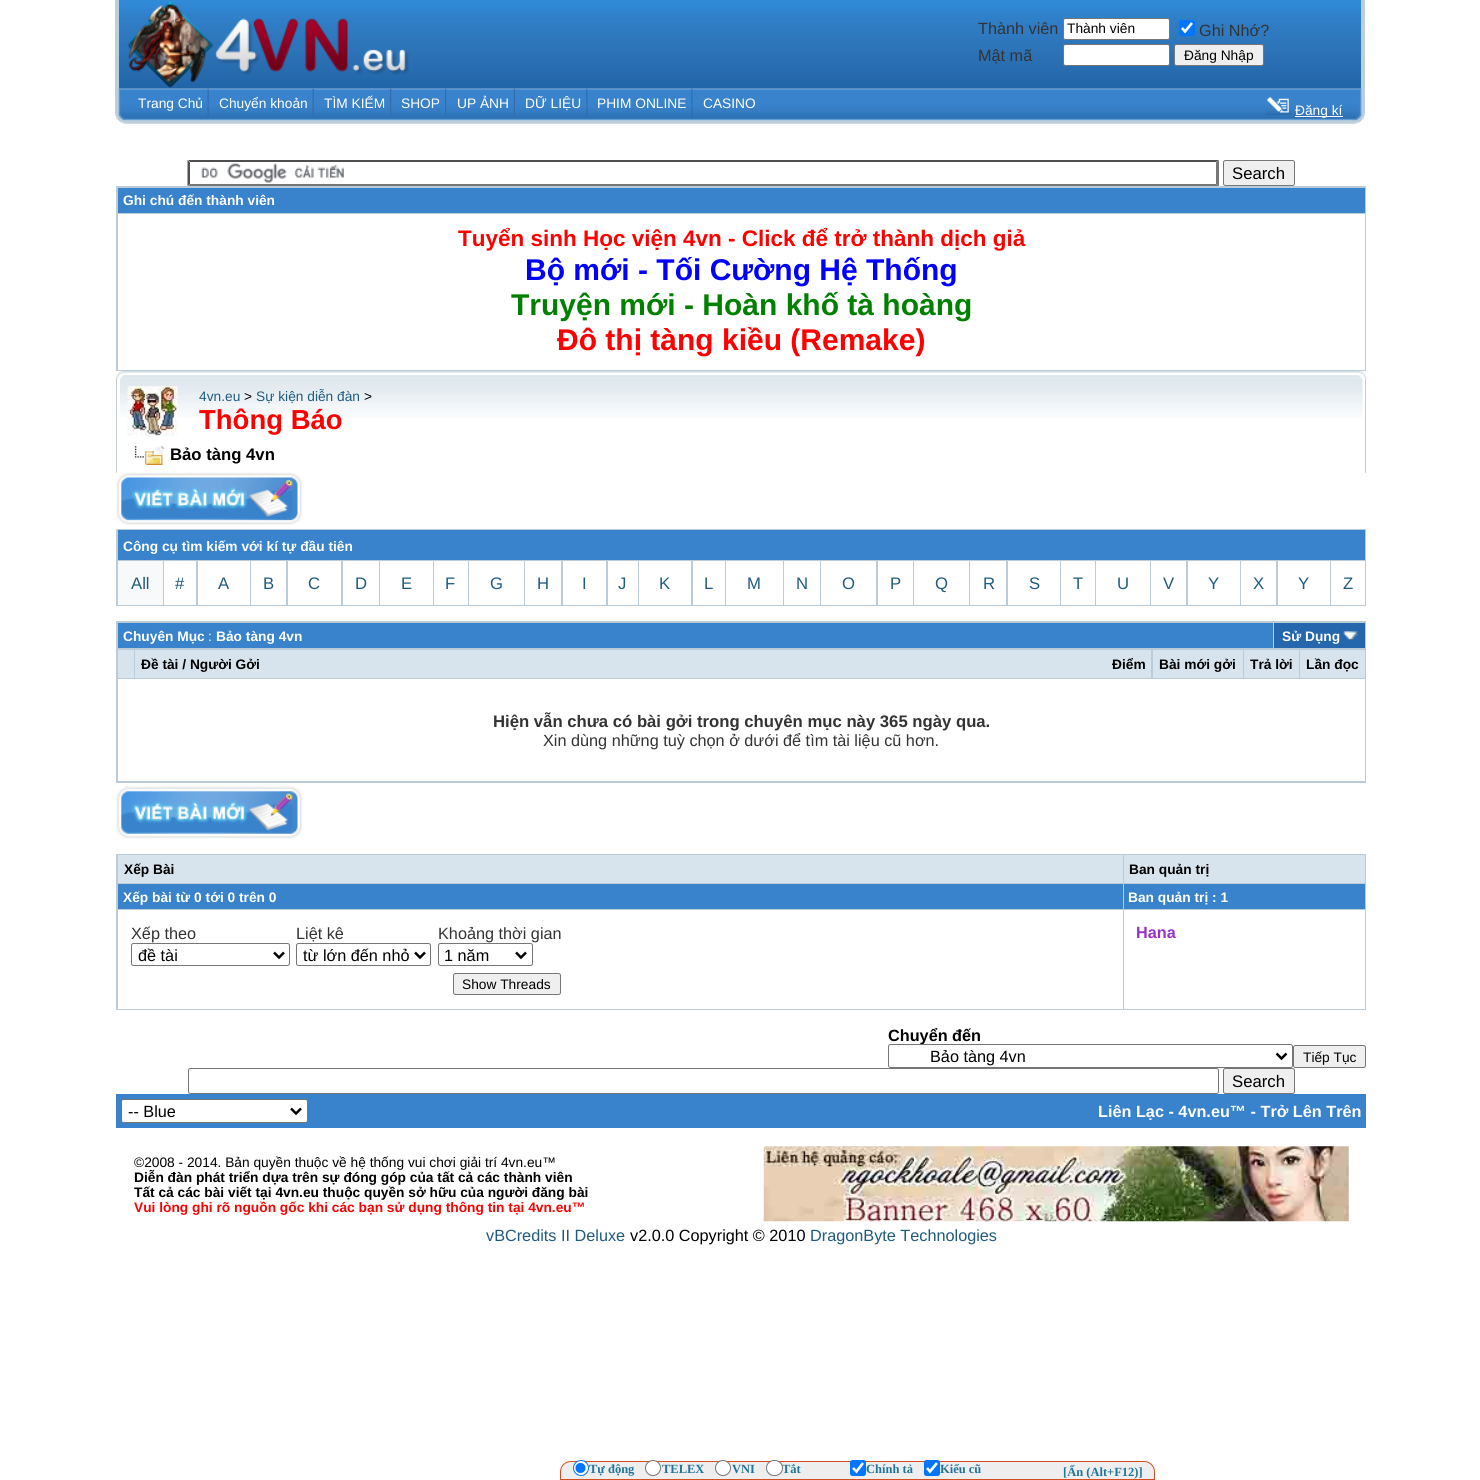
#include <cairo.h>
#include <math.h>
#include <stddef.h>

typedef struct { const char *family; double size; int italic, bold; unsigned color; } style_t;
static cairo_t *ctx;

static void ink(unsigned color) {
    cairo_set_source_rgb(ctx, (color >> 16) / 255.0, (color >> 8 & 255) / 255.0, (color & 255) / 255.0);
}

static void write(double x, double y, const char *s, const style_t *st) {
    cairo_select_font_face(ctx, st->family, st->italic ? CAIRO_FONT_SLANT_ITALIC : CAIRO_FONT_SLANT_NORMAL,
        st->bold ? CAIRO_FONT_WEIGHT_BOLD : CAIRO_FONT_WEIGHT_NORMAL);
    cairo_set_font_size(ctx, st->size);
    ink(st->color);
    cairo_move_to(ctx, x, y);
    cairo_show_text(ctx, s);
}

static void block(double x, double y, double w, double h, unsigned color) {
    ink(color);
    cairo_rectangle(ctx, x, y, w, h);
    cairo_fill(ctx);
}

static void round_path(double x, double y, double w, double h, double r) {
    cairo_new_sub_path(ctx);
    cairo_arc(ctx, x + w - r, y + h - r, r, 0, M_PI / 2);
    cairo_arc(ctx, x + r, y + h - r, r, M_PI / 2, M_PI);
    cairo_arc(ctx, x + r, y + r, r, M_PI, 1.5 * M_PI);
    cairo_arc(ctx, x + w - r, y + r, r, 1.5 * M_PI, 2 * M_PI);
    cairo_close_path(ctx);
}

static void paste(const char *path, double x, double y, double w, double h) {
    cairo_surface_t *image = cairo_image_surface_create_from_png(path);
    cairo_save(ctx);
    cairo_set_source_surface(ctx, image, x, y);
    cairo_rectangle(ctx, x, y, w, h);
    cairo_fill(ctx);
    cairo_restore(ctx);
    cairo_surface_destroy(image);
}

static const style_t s1 = {"Liberation Sans", 16.25, 0, 0, 0x333333};
static const style_t s2 = {"Liberation Sans", 13.75, 0, 0, 0x000000};
static const style_t s3 = {"Liberation Sans", 13.75, 0, 0, 0xffffff};
static const style_t s4 = {"Liberation Sans", 16.7, 0, 0, 0x000000};
static const style_t s5 = {"Liberation Sans", 13.75, 0, 1, 0xffffff};
static const style_t s6 = {"Liberation Sans", 22.5, 0, 1, 0xff0000};
static const style_t s7 = {"Liberation Sans", 30, 0, 1, 0x0000ff};
static const style_t s8 = {"Liberation Sans", 30, 0, 1, 0x008000};
static const style_t s9 = {"Liberation Sans", 30, 0, 1, 0xff0000};
static const style_t s10 = {"Liberation Sans", 13.75, 0, 0, 0x1e5b7e};
static const style_t s11 = {"Liberation Sans", 27.5, 0, 1, 0xff0000};
static const style_t s12 = {"Liberation Sans", 16.7, 0, 1, 0x000000};
static const style_t s13 = {"Liberation Sans", 16.7, 0, 0, 0x1e5b7e};
static const style_t s14 = {"Liberation Sans", 13.75, 0, 1, 0x000000};
static const style_t s15 = {"Liberation Sans", 16.7, 0, 1, 0x333333};
static const style_t s16 = {"Liberation Sans", 16.25, 0, 0, 0x000000};
static const style_t s17 = {"Liberation Sans", 16.25, 0, 1, 0x9932cc};
static const style_t s18 = {"Liberation Sans", 16.25, 0, 1, 0x000000};
static const style_t s19 = {"Liberation Sans", 16.25, 0, 1, 0xffffff};
static const style_t s20 = {"Liberation Sans", 13.75, 0, 1, 0xff0000};
static const style_t s21 = {"Liberation Sans", 16.25, 0, 0, 0x1e5b7e};
static const style_t s22 = {"Liberation Serif", 12.5, 0, 1, 0x21759b};

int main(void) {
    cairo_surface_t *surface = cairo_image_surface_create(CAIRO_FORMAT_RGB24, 1480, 1480);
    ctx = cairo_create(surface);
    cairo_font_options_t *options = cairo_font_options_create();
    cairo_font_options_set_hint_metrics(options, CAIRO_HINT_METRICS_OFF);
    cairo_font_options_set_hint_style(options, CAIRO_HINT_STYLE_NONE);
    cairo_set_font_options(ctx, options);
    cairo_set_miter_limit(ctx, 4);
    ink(0xffffff);
    cairo_paint(ctx);
    paste("pic1.png", 119, 0, 1242, 89);
    write(978, 34, "Thành viên", &s1);
    ink(0xffffff);
    round_path(1063.5, 18.5, 106, 21, 2);
    cairo_fill_preserve(ctx);
    ink(0x767676);
    cairo_set_line_width(ctx, 1);
    cairo_stroke(ctx);
    write(1067, 33, "Thành viên", &s2);
    ink(0x0075ff);
    round_path(1179, 20, 16, 16, 2.5);
    cairo_fill(ctx);
    cairo_new_path(ctx);
    cairo_move_to(ctx, 1182, 28);
    cairo_line_to(ctx, 1185, 31.5);
    cairo_line_to(ctx, 1192, 23);
    ink(0xffffff);
    cairo_set_line_width(ctx, 2.6);
    cairo_stroke(ctx);
    write(1199, 36, "Ghi Nhớ?", &s1);
    write(978, 61, "Mật mã", &s1);
    ink(0xffffff);
    round_path(1063.5, 44.5, 106, 21, 2);
    cairo_fill_preserve(ctx);
    ink(0x767676);
    cairo_set_line_width(ctx, 1);
    cairo_stroke(ctx);
    ink(0xefefef);
    round_path(1174.5, 44.5, 89, 21, 2);
    cairo_fill_preserve(ctx);
    ink(0x767676);
    cairo_stroke(ctx);
    write(1184, 60, "Ðăng Nhập", &s2);
    block(1361, 0, 4, 89, 0xbacfdb);
    block(115, 0, 4, 89, 0xbacfdb);
    paste("pic2.png", 127, 1, 282, 87);
    paste("pic3.png", 115, 88, 10, 36);
    paste("pic4.png", 125, 88, 1230, 36);
    write(138, 108, "Trang Chủ", &s3);
    paste("pic5.png", 207, 88, 2, 29);
    write(219, 108, "Chuyển khoản", &s3);
    paste("pic5.png", 312, 88, 2, 29);
    write(324, 108, "TÌM KIẾM", &s3);
    paste("pic6.png", 390, 88, 2, 30);
    write(401, 108, "SHOP", &s3);
    paste("pic6.png", 445, 88, 2, 30);
    write(457, 108, "UP ẢNH", &s3);
    paste("pic7.png", 513, 88, 2, 30);
    write(525, 108, "DỮ LIỆU", &s3);
    paste("pic8.png", 586, 88, 2, 29);
    write(597, 108, "PHIM ONLINE", &s3);
    paste("pic8.png", 691, 88, 2, 29);
    write(703, 108, "CASINO", &s3);
    paste("pic9.png", 1265, 97, 27, 18);
    block(1295, 116, 48, 1, 0xffffff);
    write(1295, 115, "Đăng kí", &s3);
    paste("pic10.png", 1355, 88, 10, 36);
    paste("pic11.png", 201, 163, 143, 20);
    ink(0x4f4f4f);
    cairo_new_path(ctx);
    cairo_move_to(ctx, 188, 160);
    cairo_line_to(ctx, 1219, 160);
    cairo_line_to(ctx, 1216, 162);
    cairo_line_to(ctx, 190, 162);
    cairo_close_path(ctx);
    cairo_fill(ctx);
    ink(0x767676);
    cairo_new_path(ctx);
    cairo_move_to(ctx, 1219, 160);
    cairo_line_to(ctx, 1219, 186);
    cairo_line_to(ctx, 1216, 184);
    cairo_line_to(ctx, 1216, 162.5);
    cairo_close_path(ctx);
    cairo_fill(ctx);
    cairo_new_path(ctx);
    cairo_move_to(ctx, 1219, 186);
    cairo_line_to(ctx, 188, 186);
    cairo_line_to(ctx, 190, 184);
    cairo_line_to(ctx, 1216, 184);
    cairo_close_path(ctx);
    cairo_fill(ctx);
    ink(0x4f4f4f);
    cairo_new_path(ctx);
    cairo_move_to(ctx, 187.5, 186);
    cairo_line_to(ctx, 187.5, 160);
    cairo_line_to(ctx, 190, 162.5);
    cairo_line_to(ctx, 190, 184);
    cairo_close_path(ctx);
    cairo_fill(ctx);
    ink(0xefefef);
    round_path(1223.5, 160.5, 71, 25, 2);
    cairo_fill_preserve(ctx);
    ink(0x767676);
    cairo_stroke(ctx);
    write(1232, 179, "Search", &s4);
    block(116, 186, 1250, 185, 0xbccbd8);
    block(118, 188, 1247, 25, 0x3883cc);
    write(123, 205, "Ghi chú đến thành viên", &s5);
    block(118, 214, 1247, 156, 0xffffff);
    write(458, 246, "Tuyển sinh Học viện 4vn - Click để trở thành dịch giả", &s6);
    write(525, 280, "Bộ mới - Tối Cường Hệ Thống", &s7);
    write(511, 315, "Truyện mới - Hoàn khố tà hoàng", &s8);
    write(557, 350, "Đô thị tàng kiều (Remake)", &s9);
    paste("pic12.png", 116, 371, 1251, 8);
    block(1365, 379, 1, 94, 0xc4cccf);
    block(116, 379, 1, 94, 0xc4cccf);
    paste("pic13.png", 120, 378, 1243, 40);
    paste("pic14.png", 127, 386, 51, 51);
    write(199, 401, "4vn.eu", &s10);
    write(256, 401, "Sự kiện diễn đàn", &s10);
    write(364, 401, ">", &s2);
    write(199, 429, "Thông Báo", &s11);
    write(244, 401, ">", &s2);
    paste("pic15.png", 134, 446, 30, 19);
    write(170, 460, "Bảo tàng 4vn", &s12);
    paste("pic16.png", 116, 472, 187, 53);
    block(116, 529, 1250, 77, 0xbccbd8);
    block(118, 530, 1247, 30, 0x3883cc);
    write(123, 551, "Công cụ tìm kiếm với kí tự đầu tiên", &s5);
    block(118, 561, 45, 44, 0xf7f9fa);
    write(131, 589, "All", &s13);
    block(164, 561, 32, 44, 0xffffff);
    write(175, 589, "#", &s13);
    block(198, 561, 52, 44, 0xffffff);
    write(218, 589, "A", &s13);
    block(251, 561, 35, 44, 0xffffff);
    write(263, 589, "B", &s13);
    block(288, 561, 53, 44, 0xffffff);
    write(308, 589, "C", &s13);
    block(343, 561, 36, 44, 0xffffff);
    write(355, 589, "D", &s13);
    block(380, 561, 53, 44, 0xffffff);
    write(401, 589, "E", &s13);
    block(434, 561, 34, 44, 0xffffff);
    write(445, 589, "F", &s13);
    block(469, 561, 55, 44, 0xffffff);
    write(490, 589, "G", &s13);
    block(525, 561, 36, 44, 0xffffff);
    write(537, 589, "H", &s13);
    block(563, 561, 43, 44, 0xffffff);
    write(582, 589, "I", &s13);
    block(608, 561, 30, 44, 0xffffff);
    write(618, 589, "J", &s13);
    block(639, 561, 52, 44, 0xffffff);
    write(659, 589, "K", &s13);
    block(693, 561, 32, 44, 0xffffff);
    write(704, 589, "L", &s13);
    block(726, 561, 57, 44, 0xffffff);
    write(747, 589, "M", &s13);
    block(784, 561, 36, 44, 0xffffff);
    write(796, 589, "N", &s13);
    block(821, 561, 55, 44, 0xffffff);
    write(842, 589, "O", &s13);
    block(878, 561, 35, 44, 0xffffff);
    write(890, 589, "P", &s13);
    block(914, 561, 55, 44, 0xffffff);
    write(935, 589, "Q", &s13);
    block(970, 561, 36, 44, 0xffffff);
    write(983, 589, "R", &s13);
    block(1008, 561, 52, 44, 0xffffff);
    write(1029, 589, "S", &s13);
    block(1061, 561, 34, 44, 0xffffff);
    write(1073, 589, "T", &s13);
    block(1096, 561, 54, 44, 0xffffff);
    write(1117, 589, "U", &s13);
    block(1151, 561, 35, 44, 0xffffff);
    write(1163, 589, "V", &s13);
    block(1188, 561, 52, 44, 0xffffff);
    write(1208, 589, "Y", &s13);
    block(1241, 561, 35, 44, 0xffffff);
    write(1253, 589, "X", &s13);
    block(1278, 561, 52, 44, 0xffffff);
    write(1298, 589, "Y", &s13);
    block(1331, 561, 34, 44, 0xffffff);
    write(1343, 589, "Z", &s13);
    block(116, 621, 1250, 162, 0xbccbd8);
    block(118, 623, 1155, 25, 0x3883cc);
    write(123, 641, "Chuyên Mục", &s5);
    write(208, 641, ":", &s3);
    write(216, 641, "Bảo tàng 4vn", &s5);
    block(1274, 623, 91, 25, 0x2467ad);
    write(1282, 641, "Sử Dụng", &s5);
    paste("pic17.png", 1343, 631, 15, 9);
    block(118, 650, 16, 28, 0xd8e4ed);
    block(135, 650, 1016, 28, 0xd8e4ed);
    write(141, 669, "Ðề tài / Người Gởi", &s14);
    write(1112, 669, "Ðiểm", &s14);
    block(1153, 650, 90, 28, 0xd8e4ed);
    write(1159, 669, "Bài mới gởi", &s14);
    block(1244, 650, 55, 28, 0xd8e4ed);
    write(1250, 669, "Trả lời", &s14);
    block(1300, 650, 65, 28, 0xd8e4ed);
    write(1306, 669, "Lần đọc", &s14);
    block(118, 679, 1247, 102, 0xffffff);
    write(493, 727, "Hiện vẫn chưa có bài gởi trong chuyên mục này 365 ngày qua.", &s15);
    write(543, 746, "Xin dùng những tuỳ chọn ở dưới để tìm tài liệu cũ hơn.", &s1);
    paste("pic18.png", 116, 786, 187, 53);
    block(116, 854, 1250, 156, 0xbccbd8);
    block(118, 855, 1005, 28, 0xd8e4ed);
    write(124, 874, "Xếp Bài", &s14);
    block(1124, 855, 241, 28, 0xd8e4ed);
    write(1129, 874, "Ban quản trị", &s14);
    block(118, 884, 1005, 25, 0x3883cc);
    write(123, 902, "Xếp bài từ 0 tới 0 trên 0", &s5);
    block(1124, 884, 241, 25, 0x3883cc);
    write(1128, 902, "Ban quản trị : 1", &s5);
    block(118, 910, 1005, 99, 0xffffff);
    write(131, 939, "Xếp theo", &s1);
    round_path(131.5, 943.5, 158, 22, 2);
    ink(0x767676);
    cairo_stroke(ctx);
    cairo_new_path(ctx);
    cairo_move_to(ctx, 274, 952.5);
    cairo_line_to(ctx, 279, 957.5);
    cairo_line_to(ctx, 284, 952.5);
    ink(0x000000);
    cairo_set_line_width(ctx, 2.5);
    cairo_stroke(ctx);
    write(138, 961, "đề tài", &s16);
    write(296, 939, "Liệt kê", &s1);
    round_path(296.5, 943.5, 134, 22, 2);
    ink(0x767676);
    cairo_set_line_width(ctx, 1);
    cairo_stroke(ctx);
    cairo_new_path(ctx);
    cairo_move_to(ctx, 415, 952.5);
    cairo_line_to(ctx, 420, 957.5);
    cairo_line_to(ctx, 425, 952.5);
    ink(0x000000);
    cairo_set_line_width(ctx, 2.5);
    cairo_stroke(ctx);
    write(303, 961, "từ lớn đến nhỏ", &s16);
    write(438, 939, "Khoảng thời gian", &s1);
    round_path(438.5, 943.5, 94, 22, 2);
    ink(0x767676);
    cairo_set_line_width(ctx, 1);
    cairo_stroke(ctx);
    cairo_new_path(ctx);
    cairo_move_to(ctx, 516, 952.5);
    cairo_line_to(ctx, 521, 957.5);
    cairo_line_to(ctx, 526, 952.5);
    ink(0x000000);
    cairo_set_line_width(ctx, 2.5);
    cairo_stroke(ctx);
    write(444, 961, "1 năm", &s16);
    ink(0xefefef);
    round_path(453.5, 973.5, 107, 21, 2);
    cairo_fill_preserve(ctx);
    ink(0x767676);
    cairo_set_line_width(ctx, 1);
    cairo_stroke(ctx);
    write(462, 989, "Show Threads", &s2);
    block(1124, 910, 241, 99, 0xffffff);
    write(1136, 938, "Hana", &s17);
    write(888, 1041, "Chuyển đến", &s18);
    ink(0xffffff);
    round_path(888.5, 1044.5, 404, 23, 2);
    cairo_fill_preserve(ctx);
    ink(0x767676);
    cairo_stroke(ctx);
    cairo_new_path(ctx);
    cairo_move_to(ctx, 1276.5, 1053.5);
    cairo_line_to(ctx, 1281.5, 1058.5);
    cairo_line_to(ctx, 1286.5, 1053.5);
    ink(0x000000);
    cairo_set_line_width(ctx, 2.5);
    cairo_stroke(ctx);
    write(930, 1062, "Bảo tàng 4vn", &s16);
    ink(0xefefef);
    round_path(1293.5, 1045.5, 72, 22, 2);
    cairo_fill_preserve(ctx);
    ink(0x767676);
    cairo_set_line_width(ctx, 1);
    cairo_stroke(ctx);
    write(1303, 1062, "Tiếp Tục", &s2);
    round_path(188.5, 1068.5, 1030, 25, 2);
    ink(0x767676);
    cairo_stroke(ctx);
    ink(0xefefef);
    round_path(1223.5, 1068.5, 71, 25, 2);
    cairo_fill_preserve(ctx);
    ink(0x767676);
    cairo_stroke(ctx);
    write(1232, 1087, "Search", &s4);
    block(116, 1094, 1250, 34, 0x3883cc);
    ink(0xffffff);
    round_path(121.5, 1099.5, 186, 23, 2);
    cairo_fill_preserve(ctx);
    ink(0x767676);
    cairo_stroke(ctx);
    cairo_new_path(ctx);
    cairo_move_to(ctx, 291, 1108.5);
    cairo_line_to(ctx, 296, 1113.5);
    cairo_line_to(ctx, 301, 1108.5);
    ink(0x000000);
    cairo_set_line_width(ctx, 2.5);
    cairo_stroke(ctx);
    write(128, 1117, "-- Blue", &s16);
    write(1098, 1117, "Liên Lạc - 4vn.eu™ - Trở Lên Trên", &s19);
    write(134, 1167, "©2008 - 2014. Bản quyền thuộc về hệ thống vui chơi giải trí 4vn.eu™", &s2);
    write(134, 1182, "Diễn đàn phát triển dựa trên sự đóng góp của tất cả các thành viên", &s14);
    write(134, 1197, "Tất cả các bài viết tại 4vn.eu thuộc quyền sở hữu của người đăng bài", &s14);
    write(134, 1212, "Vui lòng ghi rõ nguồn gốc khi các bạn sử dụng thông tin tại 4vn.eu™", &s20);
    paste("pic19.png", 763, 1146, 586, 76);
    write(486, 1241, "vBCredits II Deluxe", &s21);
    write(630, 1241, "v2.0.0 Copyright © 2010", &s16);
    write(810, 1241, "DragonByte Technologies", &s21);
    ink(0xeeeeee);
    cairo_new_path(ctx);
    cairo_move_to(ctx, 571, 1461.5);
    cairo_line_to(ctx, 1144, 1461.5);
    cairo_curve_to(ctx, 1150, 1461.5, 1154.5, 1466, 1154.5, 1472);
    cairo_line_to(ctx, 1154.5, 1479.5);
    cairo_line_to(ctx, 560.5, 1479.5);
    cairo_line_to(ctx, 560.5, 1472);
    cairo_curve_to(ctx, 560.5, 1466, 565, 1461.5, 571, 1461.5);
    cairo_close_path(ctx);
    cairo_fill_preserve(ctx);
    ink(0xd54e21);
    cairo_set_line_width(ctx, 1);
    cairo_stroke(ctx);
    ink(0xffffff);
    cairo_arc(ctx, 581, 1468, 7.5, 0, 2 * M_PI);
    cairo_fill_preserve(ctx);
    ink(0x0075ff);
    cairo_stroke(ctx);
    cairo_arc(ctx, 580.5, 1468, 5, 0, 2 * M_PI);
    cairo_fill(ctx);
    write(589, 1473, "Tự động", &s22);
    ink(0xffffff);
    cairo_new_path(ctx);
    cairo_arc(ctx, 653, 1468, 7.5, 0, 2 * M_PI);
    cairo_fill_preserve(ctx);
    ink(0x767676);
    cairo_stroke(ctx);
    write(662, 1473, "TELEX", &s22);
    ink(0xffffff);
    cairo_new_path(ctx);
    cairo_arc(ctx, 723, 1468, 7.5, 0, 2 * M_PI);
    cairo_fill_preserve(ctx);
    ink(0x767676);
    cairo_stroke(ctx);
    write(732, 1473, "VNI", &s22);
    write(782, 1473, "Tắt", &s22);
    ink(0xffffff);
    round_path(766.5, 1460.5, 16, 15, 7.5);
    cairo_fill_preserve(ctx);
    ink(0x767676);
    cairo_stroke(ctx);
    ink(0x0075ff);
    round_path(850, 1460, 16, 16, 2.5);
    cairo_fill(ctx);
    cairo_new_path(ctx);
    cairo_move_to(ctx, 853, 1468);
    cairo_line_to(ctx, 856.5, 1471.5);
    cairo_line_to(ctx, 863, 1463);
    ink(0xffffff);
    cairo_set_line_width(ctx, 2.6);
    cairo_stroke(ctx);
    write(866, 1473, "Chính tả", &s22);
    ink(0x0075ff);
    round_path(924, 1460, 16, 16, 2.5);
    cairo_fill(ctx);
    cairo_new_path(ctx);
    cairo_move_to(ctx, 927, 1468);
    cairo_line_to(ctx, 930, 1471.5);
    cairo_line_to(ctx, 937, 1463);
    ink(0xffffff);
    cairo_stroke(ctx);
    write(940, 1473, "Kiểu cũ", &s22);
    write(1063, 1476, "[Ẩn (Alt+F12)]", &s22);
    cairo_surface_write_to_png(surface, "screenshot.png");
    cairo_font_options_destroy(options);
    cairo_destroy(ctx);
    cairo_surface_destroy(surface);
    return 0;
}
